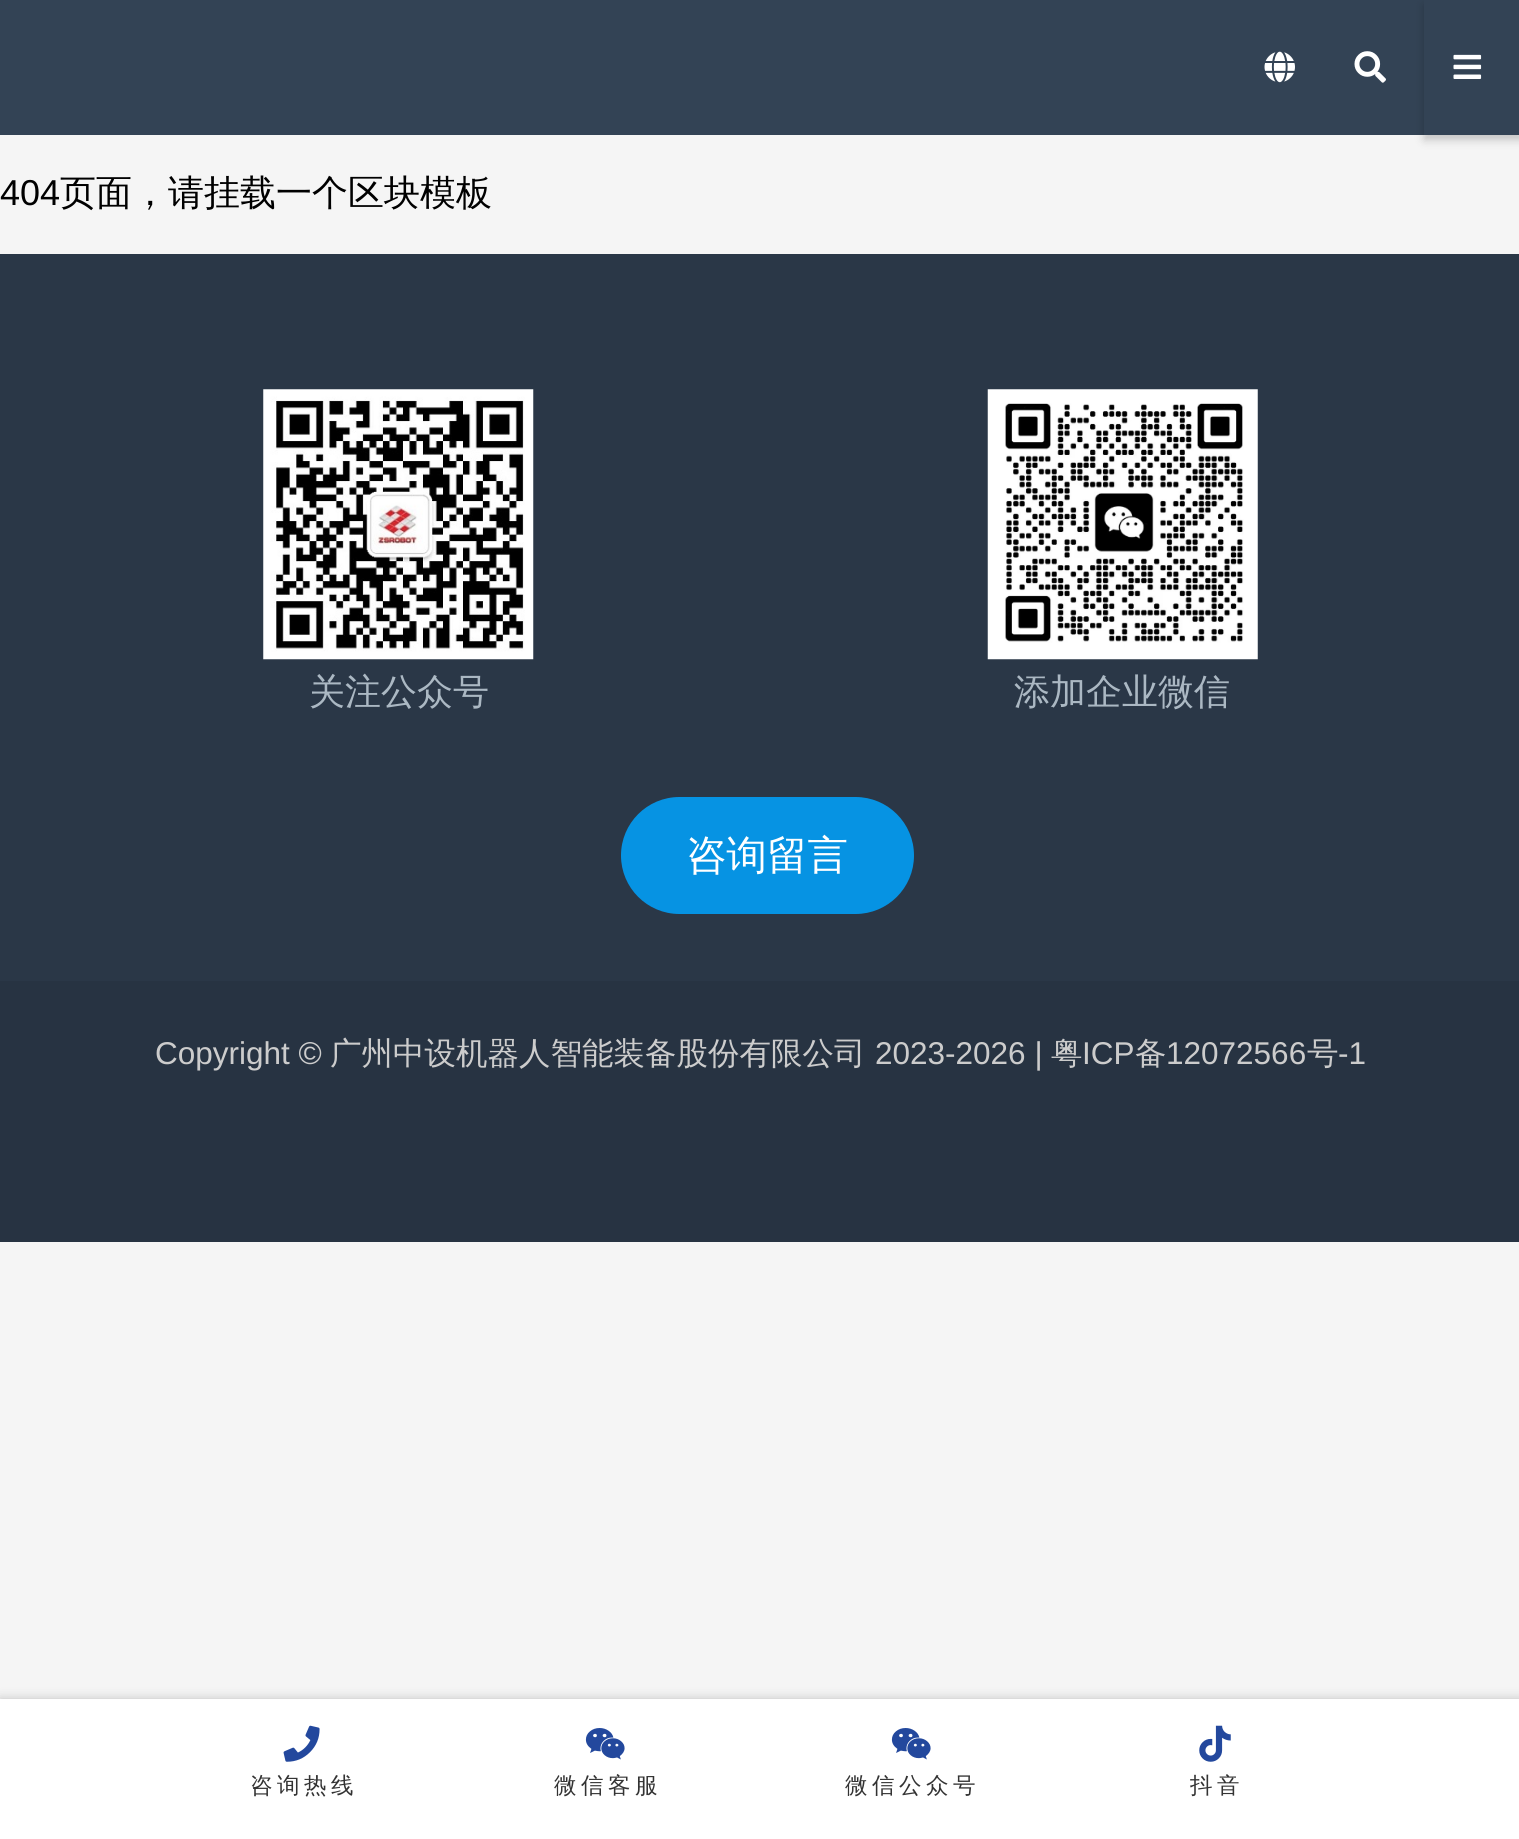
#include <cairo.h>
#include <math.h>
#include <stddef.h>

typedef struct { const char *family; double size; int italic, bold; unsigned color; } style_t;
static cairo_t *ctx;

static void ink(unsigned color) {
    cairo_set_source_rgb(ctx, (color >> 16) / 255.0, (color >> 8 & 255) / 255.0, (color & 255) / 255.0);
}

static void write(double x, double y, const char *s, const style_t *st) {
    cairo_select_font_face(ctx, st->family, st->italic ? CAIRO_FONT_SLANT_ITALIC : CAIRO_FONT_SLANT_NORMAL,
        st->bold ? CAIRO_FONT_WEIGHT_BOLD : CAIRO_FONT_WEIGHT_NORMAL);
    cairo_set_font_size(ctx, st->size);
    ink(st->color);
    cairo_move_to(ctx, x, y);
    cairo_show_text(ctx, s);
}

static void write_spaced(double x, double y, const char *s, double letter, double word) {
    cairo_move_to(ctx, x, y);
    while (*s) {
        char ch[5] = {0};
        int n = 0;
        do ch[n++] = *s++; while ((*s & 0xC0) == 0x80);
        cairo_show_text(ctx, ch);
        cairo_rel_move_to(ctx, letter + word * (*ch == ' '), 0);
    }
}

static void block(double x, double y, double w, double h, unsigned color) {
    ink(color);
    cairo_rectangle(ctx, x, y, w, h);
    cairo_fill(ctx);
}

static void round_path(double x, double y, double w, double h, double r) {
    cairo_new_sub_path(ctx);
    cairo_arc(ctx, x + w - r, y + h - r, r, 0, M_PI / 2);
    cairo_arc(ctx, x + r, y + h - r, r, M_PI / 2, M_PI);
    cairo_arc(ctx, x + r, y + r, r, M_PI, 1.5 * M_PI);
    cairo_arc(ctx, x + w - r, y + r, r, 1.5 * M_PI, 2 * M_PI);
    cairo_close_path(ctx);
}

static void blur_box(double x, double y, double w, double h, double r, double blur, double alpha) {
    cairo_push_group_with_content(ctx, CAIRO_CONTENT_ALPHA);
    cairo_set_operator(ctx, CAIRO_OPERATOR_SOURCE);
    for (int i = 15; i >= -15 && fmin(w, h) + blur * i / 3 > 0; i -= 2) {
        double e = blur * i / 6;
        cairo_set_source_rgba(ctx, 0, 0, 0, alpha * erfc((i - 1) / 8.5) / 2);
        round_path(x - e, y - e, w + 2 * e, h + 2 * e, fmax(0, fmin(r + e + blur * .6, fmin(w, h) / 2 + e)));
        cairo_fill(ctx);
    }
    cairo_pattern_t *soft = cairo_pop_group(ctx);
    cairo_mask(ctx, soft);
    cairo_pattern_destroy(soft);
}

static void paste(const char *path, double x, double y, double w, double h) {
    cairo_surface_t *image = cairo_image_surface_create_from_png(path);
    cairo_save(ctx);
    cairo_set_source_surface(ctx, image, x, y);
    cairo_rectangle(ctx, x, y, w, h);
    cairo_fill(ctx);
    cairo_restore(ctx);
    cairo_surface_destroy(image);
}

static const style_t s1 = {"Liberation Sans", 36, 0, 0, 0x000000};
static const style_t s2 = {"WenQuanYi Zen Hei Medium", 36, 0, 0, 0x000000};
static const style_t s3 = {"WenQuanYi Zen Hei Medium", 36, 0, 0, 0xabb8c3};
static const style_t s4 = {"WenQuanYi Zen Hei Medium", 40.5, 0, 0, 0xffffff};
static const style_t s5 = {"Liberation Sans", 31.5, 0, 0, 0xcccccc};
static const style_t s6 = {"WenQuanYi Zen Hei Medium", 31.5, 0, 0, 0xcccccc};

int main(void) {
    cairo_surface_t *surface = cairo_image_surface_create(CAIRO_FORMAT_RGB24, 1519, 1839);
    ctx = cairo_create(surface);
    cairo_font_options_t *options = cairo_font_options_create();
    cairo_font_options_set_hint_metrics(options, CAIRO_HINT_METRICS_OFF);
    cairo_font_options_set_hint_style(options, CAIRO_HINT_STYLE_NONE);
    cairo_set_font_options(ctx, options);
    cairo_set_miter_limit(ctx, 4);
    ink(0xf5f5f5);
    cairo_paint(ctx);
    block(0, 0, 1424, 135, 0x334355);
    ink(0x000000);
    blur_box(1424, 5, 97, 135, 0, 4.5, 0.2);
    block(1424, 0, 95, 135, 0x334355);
    paste("pic1.png", 1453, 54, 29, 25);
    paste("pic2.png", 1264, 51, 31, 32);
    paste("pic3.png", 1354, 51, 32, 32);
    write(0, 205, "404", &s1);
    write(60, 205, "页面，请挂载一个区块模板", &s2);
    block(0, 254, 1519, 727, 0x2a3747);
    paste("pic4.png", 263, 389, 271, 271);
    write(309, 704, "关注公众号", &s3);
    paste("pic5.png", 987, 389, 271, 271);
    write(1014, 704, "添加企业微信", &s3);
    ink(0x0693e3);
    round_path(621, 797, 293, 117, 58.5);
    cairo_fill(ctx);
    write(686, 869, "咨询留言", &s4);
    block(0, 981, 1519, 261, 0x273342);
    write(155, 1064, "Copyright ©", &s5);
    write(330, 1064, "广州中设机器人智能装备股份有限公司", &s6);
    write(875, 1064, "2023-2026 |", &s5);
    write(1051, 1064, "粤", &s6);
    write(1082, 1064, "ICP", &s5);
    write(1135, 1064, "备", &s6);
    write(1166, 1064, "12072566", &s5);
    write(1307, 1064, "号", &s6);
    write(1338, 1064, "-1", &s5);
    ink(0x8d8d8d);
    blur_box(0, 1699, 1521, 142, 0, 5.5, 0.5);
    block(0, 1699, 1519, 140, 0xffffff);
    paste("pic6.png", 283, 1725, 37, 37);
    cairo_select_font_face(ctx, "WenQuanYi Zen Hei Medium", CAIRO_FONT_SLANT_NORMAL, CAIRO_FONT_WEIGHT_NORMAL);
    cairo_set_font_size(ctx, 22.5);
    ink(0x333333);
    write_spaced(250, 1793, "咨询热线", 4.5, 0);
    paste("pic7.png", 585, 1728, 40, 32);
    write_spaced(554, 1793, "微信客服", 4.5, 0);
    paste("pic7.png", 891, 1728, 40, 32);
    write_spaced(845, 1793, "微信公众号", 4.5, 0);
    paste("pic8.png", 1199, 1725, 32, 37);
    write_spaced(1190, 1793, "抖音", 4.5, 0);
    cairo_surface_write_to_png(surface, "screenshot.png");
    cairo_font_options_destroy(options);
    cairo_destroy(ctx);
    cairo_surface_destroy(surface);
    return 0;
}
